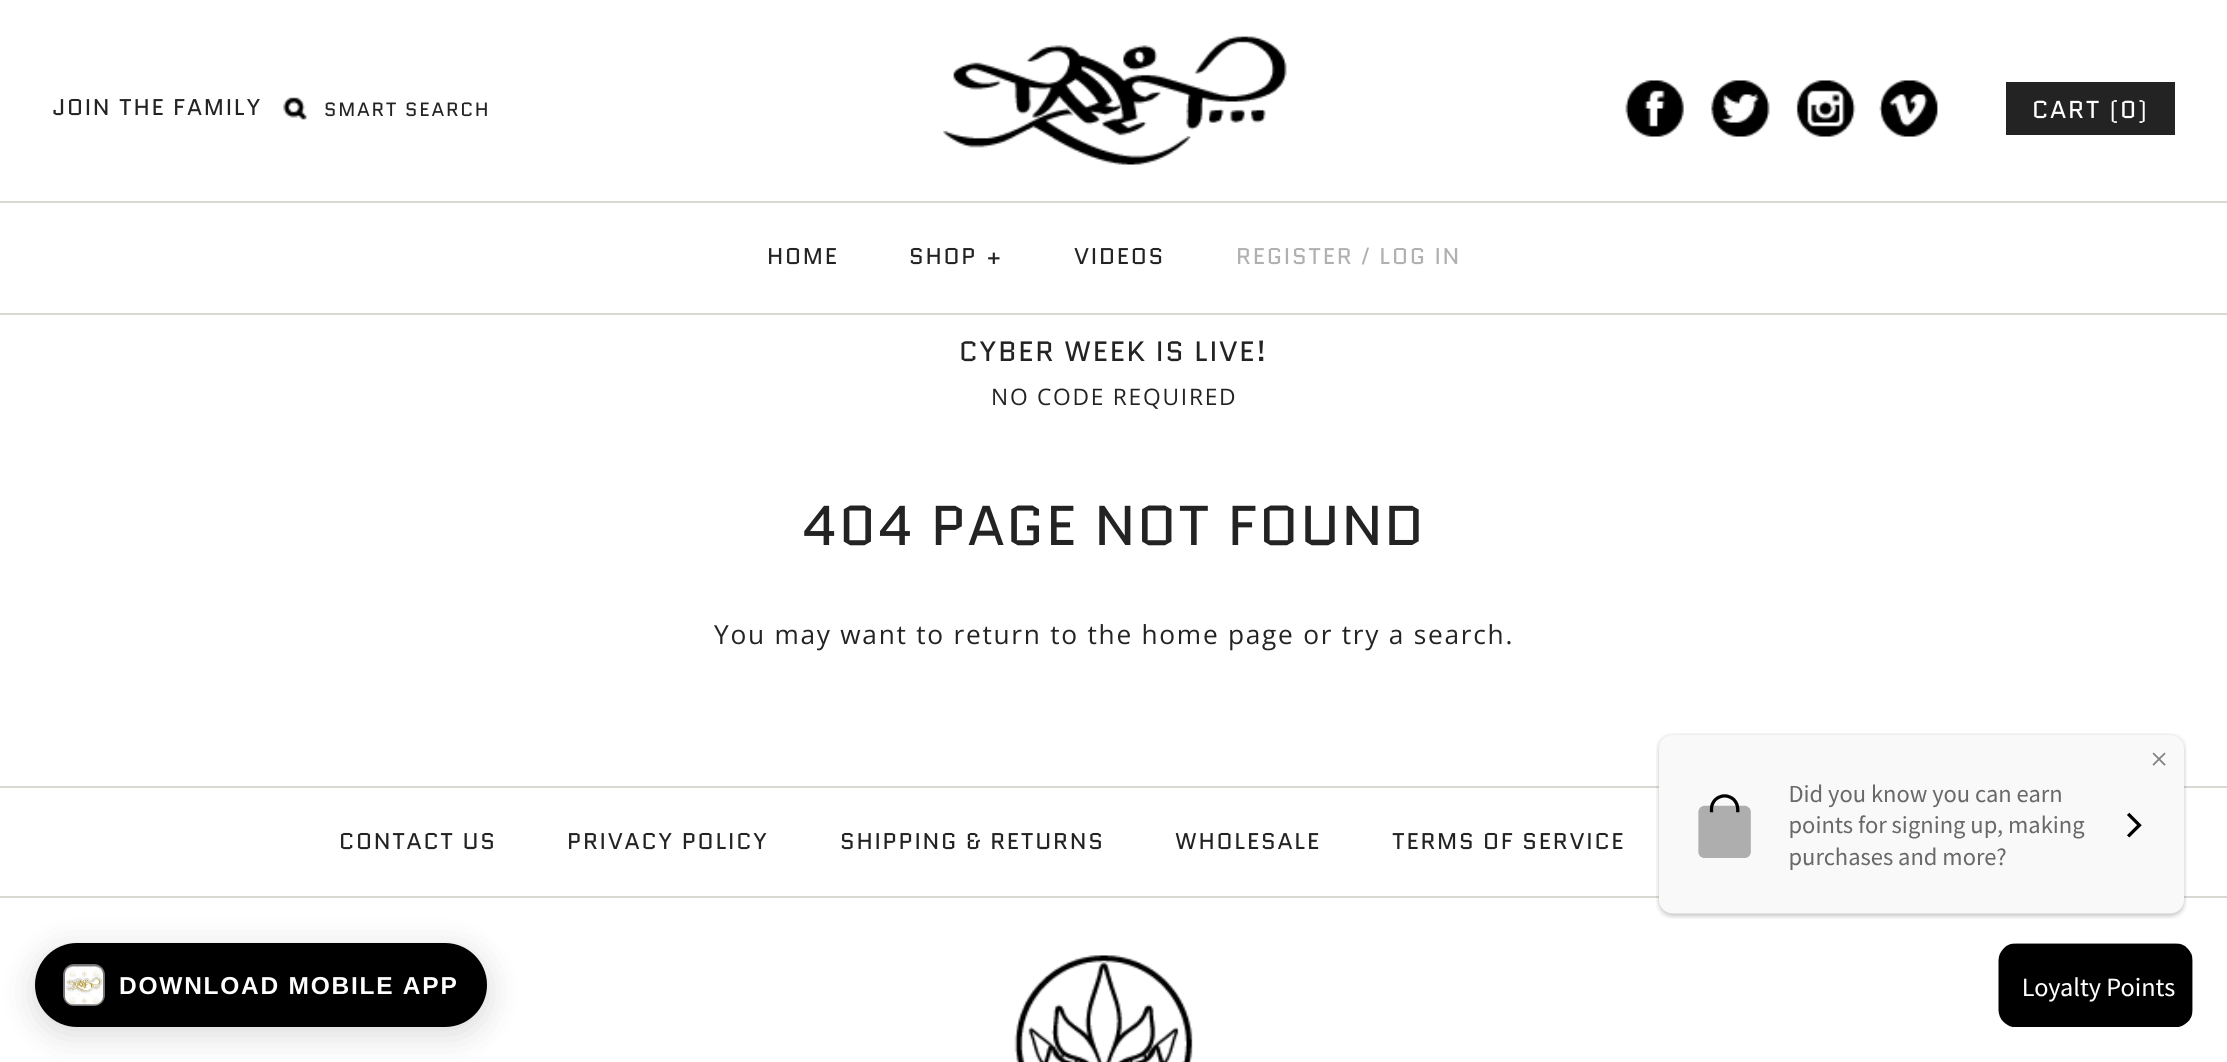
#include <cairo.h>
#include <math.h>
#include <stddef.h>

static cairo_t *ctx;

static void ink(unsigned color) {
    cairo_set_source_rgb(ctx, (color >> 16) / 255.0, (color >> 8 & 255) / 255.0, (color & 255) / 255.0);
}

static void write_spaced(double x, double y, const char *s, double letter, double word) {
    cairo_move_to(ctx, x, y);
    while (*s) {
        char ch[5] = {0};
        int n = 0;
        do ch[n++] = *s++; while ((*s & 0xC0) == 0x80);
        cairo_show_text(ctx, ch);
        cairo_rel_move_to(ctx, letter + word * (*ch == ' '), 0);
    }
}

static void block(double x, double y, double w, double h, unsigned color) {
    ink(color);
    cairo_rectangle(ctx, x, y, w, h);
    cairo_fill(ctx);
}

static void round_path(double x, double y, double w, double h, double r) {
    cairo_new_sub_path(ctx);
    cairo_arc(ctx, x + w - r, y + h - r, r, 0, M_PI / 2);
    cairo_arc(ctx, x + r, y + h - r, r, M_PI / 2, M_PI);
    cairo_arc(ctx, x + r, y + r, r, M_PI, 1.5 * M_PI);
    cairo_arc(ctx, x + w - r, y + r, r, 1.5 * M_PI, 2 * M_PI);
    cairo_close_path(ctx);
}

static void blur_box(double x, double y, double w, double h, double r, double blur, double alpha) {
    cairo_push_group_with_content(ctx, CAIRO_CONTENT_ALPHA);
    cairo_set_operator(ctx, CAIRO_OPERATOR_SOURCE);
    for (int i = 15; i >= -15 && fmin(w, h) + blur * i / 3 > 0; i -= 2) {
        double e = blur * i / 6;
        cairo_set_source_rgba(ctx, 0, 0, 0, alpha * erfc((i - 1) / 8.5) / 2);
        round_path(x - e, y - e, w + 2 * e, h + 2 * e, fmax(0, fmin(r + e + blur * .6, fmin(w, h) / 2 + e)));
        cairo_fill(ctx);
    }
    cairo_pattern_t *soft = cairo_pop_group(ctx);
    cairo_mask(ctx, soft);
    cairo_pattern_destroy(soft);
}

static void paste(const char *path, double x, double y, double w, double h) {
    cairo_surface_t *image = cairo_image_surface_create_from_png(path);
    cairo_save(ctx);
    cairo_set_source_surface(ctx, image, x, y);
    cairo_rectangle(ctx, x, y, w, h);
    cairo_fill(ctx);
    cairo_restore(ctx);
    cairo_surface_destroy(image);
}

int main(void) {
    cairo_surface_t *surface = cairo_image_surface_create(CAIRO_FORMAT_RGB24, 2227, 1062);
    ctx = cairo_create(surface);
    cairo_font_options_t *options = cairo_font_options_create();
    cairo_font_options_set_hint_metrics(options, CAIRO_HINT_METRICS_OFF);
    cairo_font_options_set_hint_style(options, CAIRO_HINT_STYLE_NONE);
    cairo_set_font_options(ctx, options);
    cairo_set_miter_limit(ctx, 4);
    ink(0xffffff);
    cairo_paint(ctx);
    paste("pic1.png", 943, 36, 344, 129);
    cairo_select_font_face(ctx, "Quantico", CAIRO_FONT_SLANT_NORMAL, CAIRO_FONT_WEIGHT_NORMAL);
    cairo_set_font_size(ctx, 22.75);
    ink(0x232323);
    write_spaced(53, 115, "JOIN THE FAMILY", 1.75, 0);
    paste("pic2.png", 283, 97, 24, 23);
    cairo_set_font_size(ctx, 19.25);
    write_spaced(324, 116, "SMART SEARCH", 1.75, 0);
    paste("pic3.png", 1625, 80, 59, 57);
    paste("pic4.png", 1711, 80, 59, 57);
    paste("pic5.png", 1796, 80, 60, 57);
    paste("pic6.png", 1879, 80, 59, 57);
    block(2006, 82, 169, 53, 0x232323);
    cairo_set_font_size(ctx, 24.5);
    ink(0xffffff);
    write_spaced(2032, 118, "CART (0)", 1.75, 0);
    block(0, 313, 2227, 2, 0xd9d9d4);
    block(0, 201, 2227, 2, 0xd9d9d4);
    cairo_set_font_size(ctx, 22.75);
    ink(0x232323);
    write_spaced(767, 264, "HOME", 1.75, 0);
    write_spaced(909, 264, "SHOP", 1.75, 0);
    write_spaced(987, 264, "+", 1.75, 0);
    write_spaced(1074, 264, "VIDEOS", 1.75, 0);
    ink(0xb0b0b0);
    write_spaced(1236, 264, "REGISTER / LOG IN", 1.75, 0);
    cairo_set_font_size(ctx, 28);
    ink(0x232323);
    write_spaced(959, 361, "CYBER WEEK IS LIVE!", 1.75, 0);
    cairo_select_font_face(ctx, "Open Sans", CAIRO_FONT_SLANT_NORMAL, CAIRO_FONT_WEIGHT_NORMAL);
    cairo_set_font_size(ctx, 22.75);
    write_spaced(991, 405, "NO CODE REQUIRED", 1.75, 0);
    cairo_select_font_face(ctx, "Quantico", CAIRO_FONT_SLANT_NORMAL, CAIRO_FONT_WEIGHT_NORMAL);
    cairo_set_font_size(ctx, 56);
    write_spaced(802, 545, "404 PAGE NOT FOUND", 1.75, 0);
    cairo_select_font_face(ctx, "Open Sans", CAIRO_FONT_SLANT_NORMAL, CAIRO_FONT_WEIGHT_NORMAL);
    cairo_set_font_size(ctx, 26.25);
    write_spaced(714, 644, "You may want to return to the home page or try a search.", 1.75, 0);
    block(0, 786, 2227, 2, 0xd9d9d4);
    block(0, 896, 2227, 2, 0xd9d9d4);
    cairo_select_font_face(ctx, "Quantico", CAIRO_FONT_SLANT_NORMAL, CAIRO_FONT_WEIGHT_NORMAL);
    cairo_set_font_size(ctx, 22.75);
    ink(0x232323);
    write_spaced(339, 849, "CONTACT US", 1.75, 0);
    write_spaced(567, 849, "PRIVACY POLICY", 1.75, 0);
    write_spaced(840, 849, "SHIPPING & RETURNS", 1.75, 0);
    write_spaced(1175, 849, "WHOLESALE", 1.75, 0);
    write_spaced(1392, 849, "TERMS OF SERVICE", 1.75, 0);
    paste("pic7.png", 1014, 955, 179, 107);
    paste("pic8.png", 1656, 733, 531, 186);
    ink(0x000000);
    blur_box(35, 950, 452, 84, 42, 17.5, 0.15);
    ink(0x000000);
    round_path(35, 943, 452, 84, 42);
    cairo_fill(ctx);
    round_path(64, 965, 40, 40, 10);
    ink(0x727272);
    cairo_stroke(ctx);
    paste("pic9.png", 64, 965, 40, 40);
    cairo_select_font_face(ctx, "Liberation Sans", CAIRO_FONT_SLANT_NORMAL, CAIRO_FONT_WEIGHT_BOLD);
    cairo_set_font_size(ctx, 24.5);
    ink(0xffffff);
    write_spaced(119, 994, "DOWNLOAD MOBILE APP", 1.75, 0);
    paste("pic10.png", 1998, 943, 195, 84);
    cairo_surface_write_to_png(surface, "screenshot.png");
    cairo_font_options_destroy(options);
    cairo_destroy(ctx);
    cairo_surface_destroy(surface);
    return 0;
}
